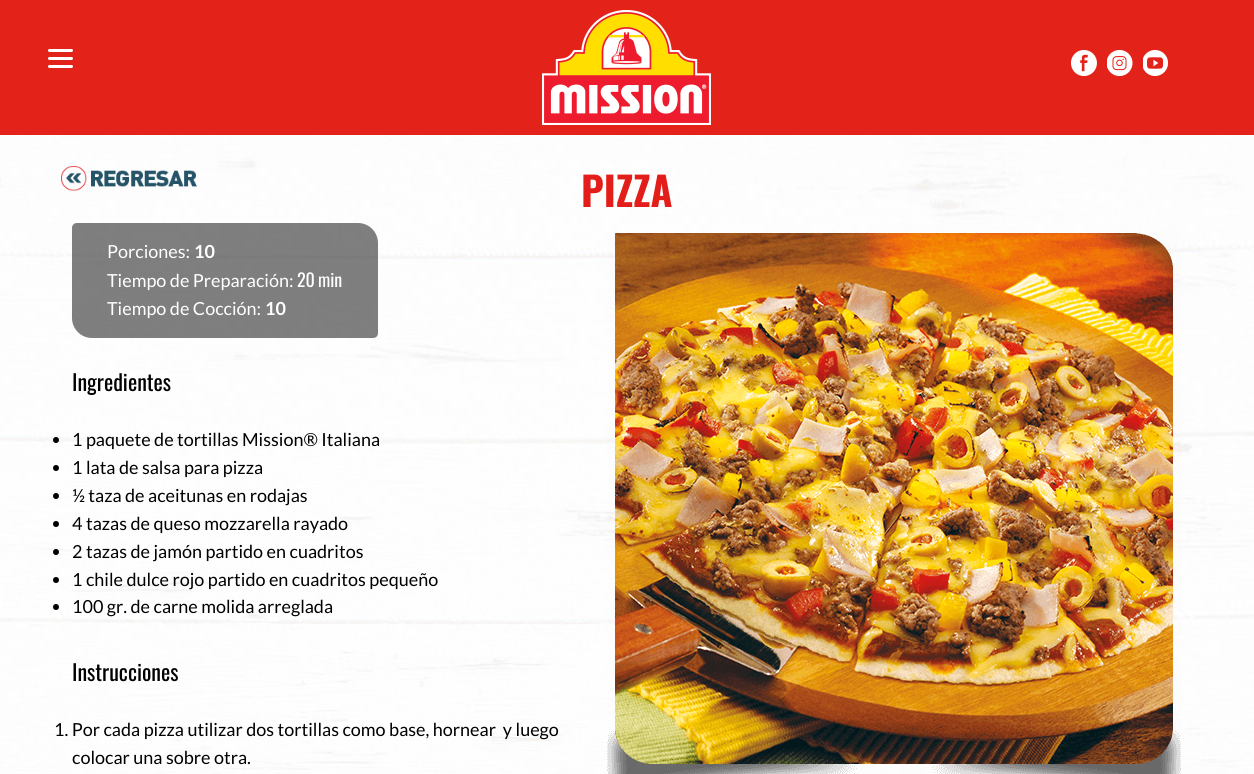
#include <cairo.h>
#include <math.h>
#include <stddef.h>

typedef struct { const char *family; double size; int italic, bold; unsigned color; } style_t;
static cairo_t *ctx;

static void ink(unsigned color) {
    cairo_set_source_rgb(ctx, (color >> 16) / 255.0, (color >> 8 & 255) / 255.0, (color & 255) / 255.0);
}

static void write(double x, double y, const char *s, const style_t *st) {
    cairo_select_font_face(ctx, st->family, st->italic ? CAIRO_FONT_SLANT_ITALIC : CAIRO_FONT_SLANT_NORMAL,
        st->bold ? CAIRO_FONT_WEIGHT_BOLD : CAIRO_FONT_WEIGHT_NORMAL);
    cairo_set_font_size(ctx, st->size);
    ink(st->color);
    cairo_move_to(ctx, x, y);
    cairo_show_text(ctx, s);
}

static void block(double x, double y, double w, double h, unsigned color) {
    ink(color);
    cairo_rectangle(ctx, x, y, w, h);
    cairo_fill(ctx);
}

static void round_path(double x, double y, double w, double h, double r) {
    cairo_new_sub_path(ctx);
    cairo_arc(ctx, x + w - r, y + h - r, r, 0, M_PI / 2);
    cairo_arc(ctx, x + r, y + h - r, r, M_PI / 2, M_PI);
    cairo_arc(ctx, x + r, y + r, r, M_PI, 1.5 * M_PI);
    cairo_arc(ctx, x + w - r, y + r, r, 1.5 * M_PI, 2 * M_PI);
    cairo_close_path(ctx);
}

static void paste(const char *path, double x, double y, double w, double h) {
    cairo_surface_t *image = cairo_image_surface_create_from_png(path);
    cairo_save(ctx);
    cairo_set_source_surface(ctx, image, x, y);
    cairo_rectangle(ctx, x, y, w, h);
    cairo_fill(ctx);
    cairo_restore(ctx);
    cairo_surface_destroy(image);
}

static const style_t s1 = {"Oswald", 40, 0, 1, 0xe31d1a};
static const style_t s2 = {"Lato", 18, 0, 0, 0xffffff};
static const style_t s3 = {"Lato", 18, 0, 1, 0xffffff};
static const style_t s4 = {"Oswald", 18, 0, 0, 0xffffff};
static const style_t s5 = {"Oswald", 22, 0, 0, 0x000000};
static const style_t s6 = {"Lato", 18, 0, 0, 0x000000};

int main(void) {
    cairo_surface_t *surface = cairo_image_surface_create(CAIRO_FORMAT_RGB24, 1254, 774);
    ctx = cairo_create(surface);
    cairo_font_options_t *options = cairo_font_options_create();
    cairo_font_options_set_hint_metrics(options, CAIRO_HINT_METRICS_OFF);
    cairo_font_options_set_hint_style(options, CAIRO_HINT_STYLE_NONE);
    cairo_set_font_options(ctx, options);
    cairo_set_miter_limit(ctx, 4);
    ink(0xffffff);
    cairo_paint(ctx);
    paste("pic1.png", 0, 135, 1254, 639);
    block(0, 0, 1254, 135, 0xe3231a);
    ink(0xffffff);
    round_path(48, 57, 25, 3, 1.5);
    cairo_fill(ctx);
    round_path(48, 49, 25, 3, 1.5);
    cairo_fill(ctx);
    round_path(48, 65, 25, 3, 1.5);
    cairo_fill(ctx);
    paste("pic2.png", 542, 10, 169, 115);
    paste("pic3.png", 1071, 50, 26, 26);
    paste("pic4.png", 1107, 50, 26, 26);
    paste("pic5.png", 1143, 50, 25, 26);
    paste("pic6.png", 61, 166, 136, 25);
    write(581, 207, "PIZZA", &s1);
    cairo_set_source_rgba(ctx, 0, 0, 0, 0.5);
    cairo_new_path(ctx);
    cairo_move_to(ctx, 77, 223);
    cairo_line_to(ctx, 358, 223);
    cairo_curve_to(ctx, 369, 223, 378, 232, 378, 243);
    cairo_line_to(ctx, 378, 333);
    cairo_curve_to(ctx, 378, 336, 376, 338, 373, 338);
    cairo_line_to(ctx, 92, 338);
    cairo_curve_to(ctx, 81, 338, 72, 329, 72, 318);
    cairo_line_to(ctx, 72, 228);
    cairo_curve_to(ctx, 72, 225, 74, 223, 77, 223);
    cairo_close_path(ctx);
    cairo_fill(ctx);
    write(107, 258, "Porciones:", &s2);
    write(194, 258, "10", &s3);
    write(107, 287, "Tiempo de Preparación:", &s2);
    write(297, 287, "20", &s4);
    write(318, 287, "min", &s4);
    write(107, 315, "Tiempo de Cocción:", &s2);
    write(265, 315, "10", &s3);
    paste("pic7.png", 607, 233, 574, 541);
    write(72, 391, "Ingredientes", &s5);
    cairo_new_path(ctx);
    cairo_arc(ctx, 56, 440, 3, 0, 2 * M_PI);
    cairo_fill(ctx);
    write(72, 446, "1 paquete de tortillas Mission® Italiana", &s6);
    cairo_new_path(ctx);
    cairo_arc(ctx, 56, 468, 3, 0, 2 * M_PI);
    cairo_fill(ctx);
    write(72, 474, "1 lata de salsa para pizza", &s6);
    cairo_new_path(ctx);
    cairo_arc(ctx, 56, 496, 3, 0, 2 * M_PI);
    cairo_fill(ctx);
    write(72, 502, "½ taza de aceitunas en rodajas", &s6);
    cairo_new_path(ctx);
    cairo_arc(ctx, 56, 524, 3, 0, 2 * M_PI);
    cairo_fill(ctx);
    write(72, 530, "4 tazas de queso mozzarella rayado", &s6);
    cairo_new_path(ctx);
    cairo_arc(ctx, 56, 552, 3, 0, 2 * M_PI);
    cairo_fill(ctx);
    write(72, 558, "2 tazas de jamón partido en cuadritos", &s6);
    cairo_new_path(ctx);
    cairo_arc(ctx, 56, 580, 3, 0, 2 * M_PI);
    cairo_fill(ctx);
    write(72, 586, "1 chile dulce rojo partido en cuadritos pequeño", &s6);
    cairo_new_path(ctx);
    cairo_arc(ctx, 56, 607, 3, 0, 2 * M_PI);
    cairo_fill(ctx);
    write(72, 613, "100 gr. de carne molida arreglada", &s6);
    write(72, 681, "Instrucciones", &s5);
    write(54, 736, "1. Por cada pizza utilizar dos tortillas como base, hornear  y luego", &s6);
    write(72, 764, "colocar una sobre otra.", &s6);
    cairo_surface_write_to_png(surface, "screenshot.png");
    cairo_font_options_destroy(options);
    cairo_destroy(ctx);
    cairo_surface_destroy(surface);
    return 0;
}
